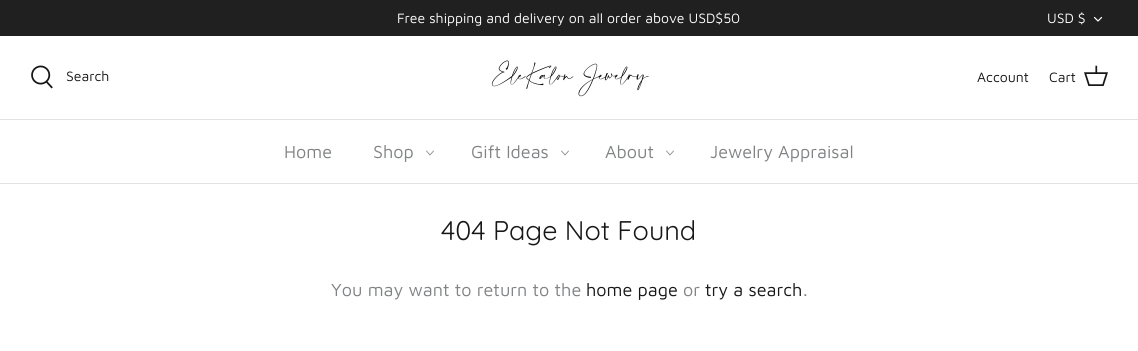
#include <cairo.h>
#include <math.h>
#include <stddef.h>

typedef struct { const char *family; double size; int italic, bold; unsigned color; } style_t;
static cairo_t *ctx;

static void ink(unsigned color) {
    cairo_set_source_rgb(ctx, (color >> 16) / 255.0, (color >> 8 & 255) / 255.0, (color & 255) / 255.0);
}

static void write(double x, double y, const char *s, const style_t *st) {
    cairo_select_font_face(ctx, st->family, st->italic ? CAIRO_FONT_SLANT_ITALIC : CAIRO_FONT_SLANT_NORMAL,
        st->bold ? CAIRO_FONT_WEIGHT_BOLD : CAIRO_FONT_WEIGHT_NORMAL);
    cairo_set_font_size(ctx, st->size);
    ink(st->color);
    cairo_move_to(ctx, x, y);
    cairo_show_text(ctx, s);
}

static void block(double x, double y, double w, double h, unsigned color) {
    ink(color);
    cairo_rectangle(ctx, x, y, w, h);
    cairo_fill(ctx);
}

static void paste(const char *path, double x, double y, double w, double h) {
    cairo_surface_t *image = cairo_image_surface_create_from_png(path);
    cairo_save(ctx);
    cairo_set_source_surface(ctx, image, x, y);
    cairo_rectangle(ctx, x, y, w, h);
    cairo_fill(ctx);
    cairo_restore(ctx);
    cairo_surface_destroy(image);
}

static const style_t s1 = {"Maven Pro", 14, 0, 0, 0xffffff};
static const style_t s2 = {"Maven Pro", 14, 0, 0, 0x171717};
static const style_t s3 = {"Maven Pro", 18, 0, 0, 0x808284};
static const style_t s4 = {"Quicksand", 27, 0, 0, 0x171717};
static const style_t s5 = {"Maven Pro", 18, 0, 0, 0x171717};

int main(void) {
    cairo_surface_t *surface = cairo_image_surface_create(CAIRO_FORMAT_RGB24, 1138, 351);
    ctx = cairo_create(surface);
    cairo_font_options_t *options = cairo_font_options_create();
    cairo_font_options_set_hint_metrics(options, CAIRO_HINT_METRICS_OFF);
    cairo_font_options_set_hint_style(options, CAIRO_HINT_STYLE_NONE);
    cairo_set_font_options(ctx, options);
    cairo_set_miter_limit(ctx, 4);
    ink(0xffffff);
    cairo_paint(ctx);
    block(0, 0, 1138, 36, 0x202020);
    write(397, 23, "Free shipping and delivery on all order above USD$50", &s1);
    write(1047, 23, "USD $", &s1);
    cairo_new_path(ctx);
    cairo_move_to(ctx, 1094.5, 17.5);
    cairo_line_to(ctx, 1098, 21);
    cairo_line_to(ctx, 1101.5, 17.5);
    cairo_set_line_width(ctx, 1.2);
    cairo_set_line_cap(ctx, CAIRO_LINE_CAP_ROUND);
    cairo_set_line_join(ctx, CAIRO_LINE_JOIN_ROUND);
    cairo_stroke(ctx);
    block(0, 119, 1138, 1, 0xe2e2e2);
    paste("pic1.png", 31, 65, 22, 24);
    write(66, 81, "Search", &s2);
    paste("pic2.png", 491, 60, 158, 37);
    write(977, 82, "Account", &s2);
    write(1049, 82, "Cart", &s2);
    paste("pic3.png", 1084, 65, 24, 21);
    block(0, 183, 1138, 1, 0xe2e2e2);
    write(284, 158, "Home", &s3);
    write(373, 158, "Shop", &s3);
    cairo_new_path(ctx);
    cairo_move_to(ctx, 426.5, 151);
    cairo_line_to(ctx, 430, 155);
    cairo_line_to(ctx, 433.5, 151);
    cairo_set_line_width(ctx, 0.8);
    cairo_stroke(ctx);
    write(471, 158, "Gift Ideas", &s3);
    cairo_new_path(ctx);
    cairo_move_to(ctx, 561.5, 151);
    cairo_line_to(ctx, 565, 155);
    cairo_line_to(ctx, 568.5, 151);
    cairo_stroke(ctx);
    write(605, 158, "About", &s3);
    cairo_new_path(ctx);
    cairo_move_to(ctx, 666.5, 151);
    cairo_line_to(ctx, 670, 155);
    cairo_line_to(ctx, 673.5, 151);
    cairo_stroke(ctx);
    write(710, 158, "Jewelry Appraisal", &s3);
    write(441, 240, "404 Page Not Found", &s4);
    write(331, 296, "You may want to return to the", &s3);
    write(586, 296, "home page", &s5);
    write(683, 296, "or", &s3);
    write(705, 296, "try a search", &s5);
    write(803, 296, ".", &s3);
    cairo_surface_write_to_png(surface, "screenshot.png");
    cairo_font_options_destroy(options);
    cairo_destroy(ctx);
    cairo_surface_destroy(surface);
    return 0;
}
